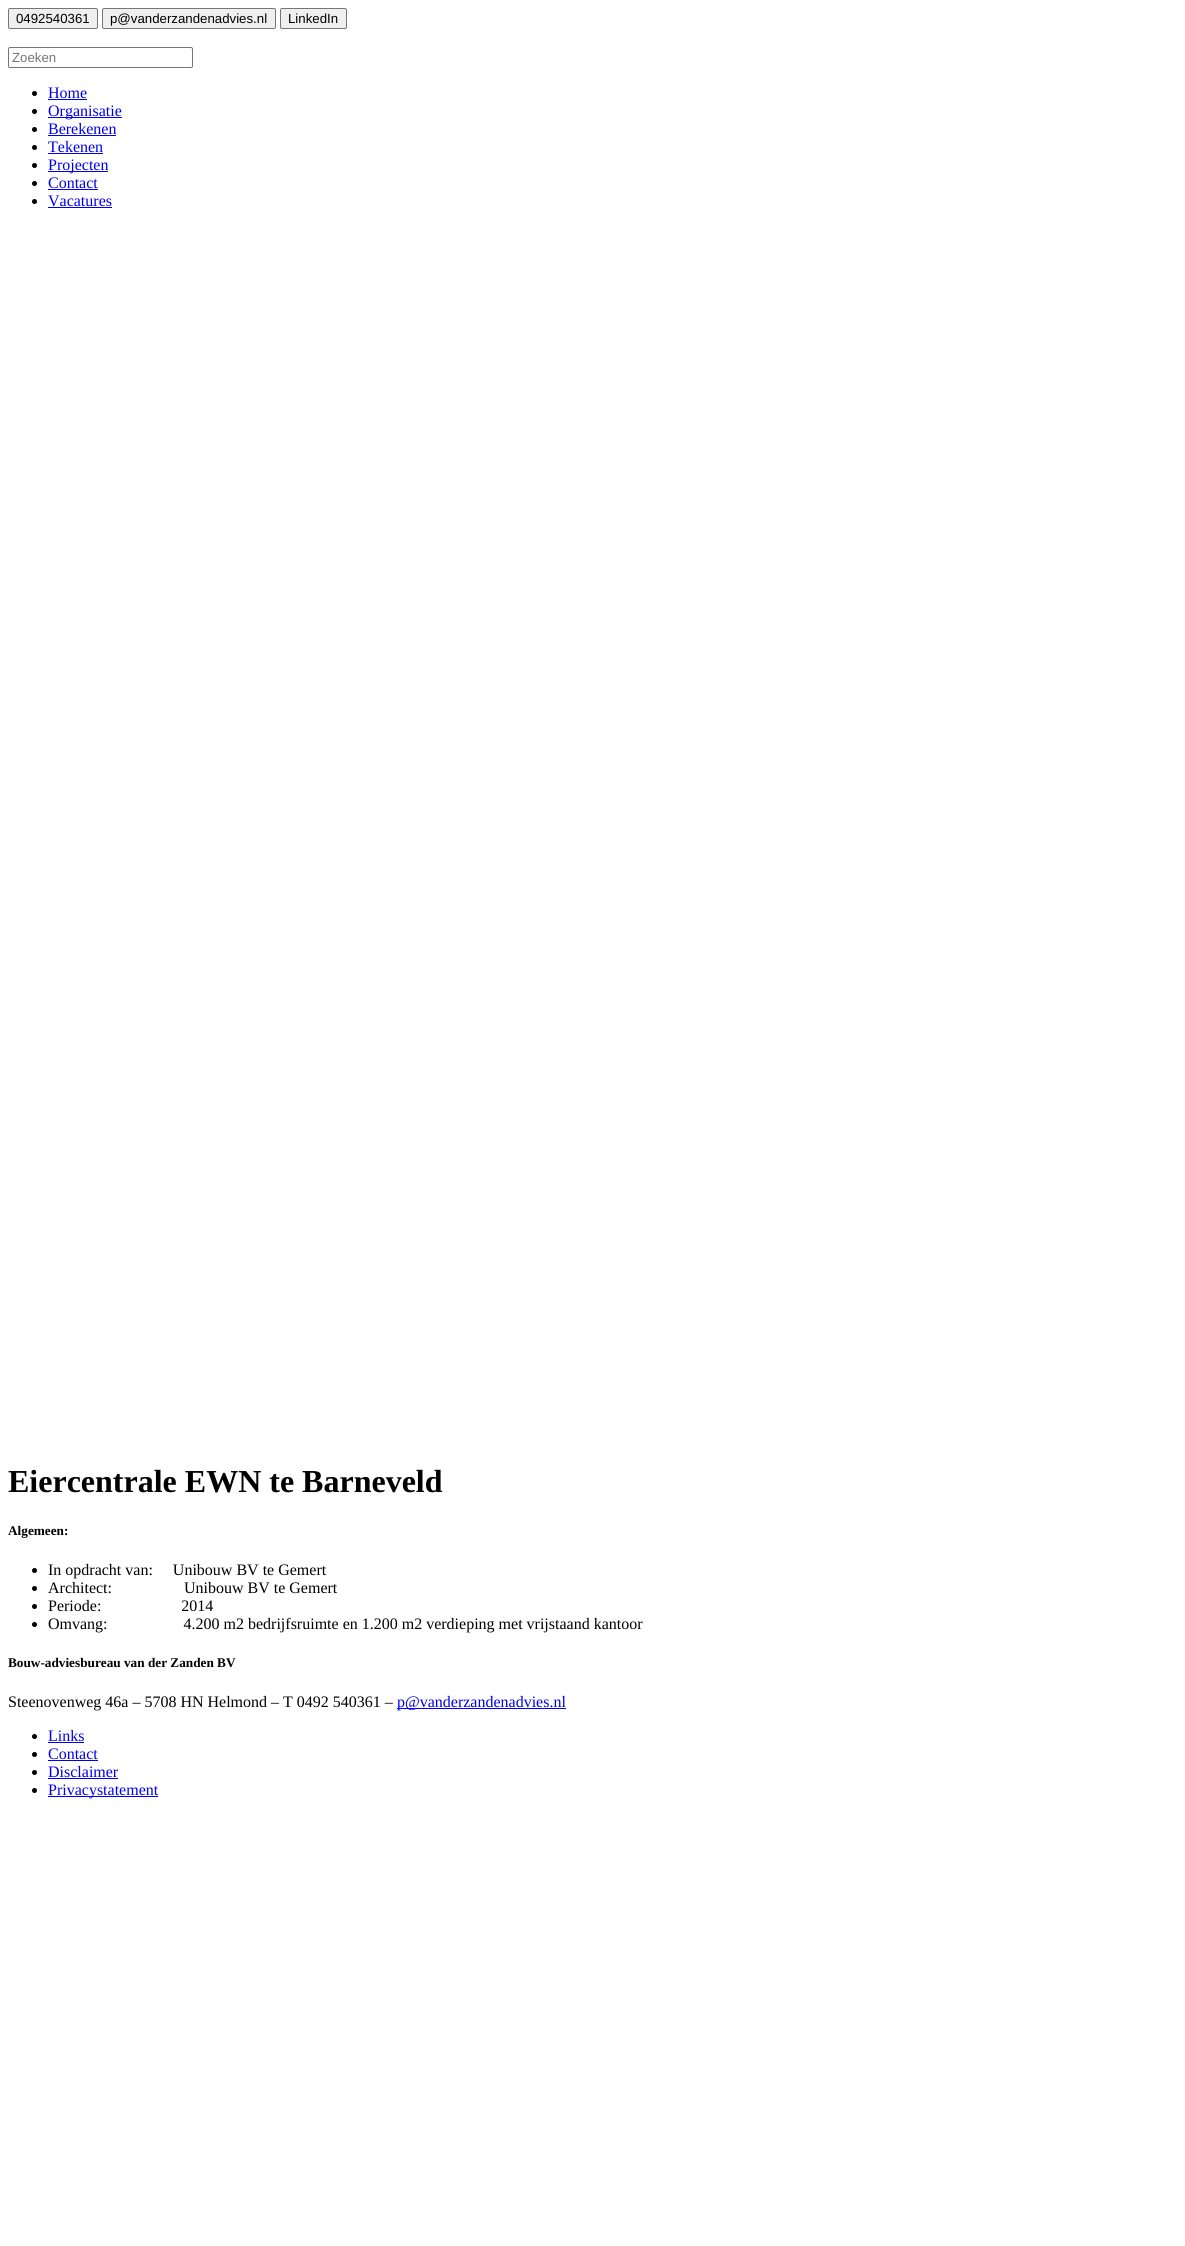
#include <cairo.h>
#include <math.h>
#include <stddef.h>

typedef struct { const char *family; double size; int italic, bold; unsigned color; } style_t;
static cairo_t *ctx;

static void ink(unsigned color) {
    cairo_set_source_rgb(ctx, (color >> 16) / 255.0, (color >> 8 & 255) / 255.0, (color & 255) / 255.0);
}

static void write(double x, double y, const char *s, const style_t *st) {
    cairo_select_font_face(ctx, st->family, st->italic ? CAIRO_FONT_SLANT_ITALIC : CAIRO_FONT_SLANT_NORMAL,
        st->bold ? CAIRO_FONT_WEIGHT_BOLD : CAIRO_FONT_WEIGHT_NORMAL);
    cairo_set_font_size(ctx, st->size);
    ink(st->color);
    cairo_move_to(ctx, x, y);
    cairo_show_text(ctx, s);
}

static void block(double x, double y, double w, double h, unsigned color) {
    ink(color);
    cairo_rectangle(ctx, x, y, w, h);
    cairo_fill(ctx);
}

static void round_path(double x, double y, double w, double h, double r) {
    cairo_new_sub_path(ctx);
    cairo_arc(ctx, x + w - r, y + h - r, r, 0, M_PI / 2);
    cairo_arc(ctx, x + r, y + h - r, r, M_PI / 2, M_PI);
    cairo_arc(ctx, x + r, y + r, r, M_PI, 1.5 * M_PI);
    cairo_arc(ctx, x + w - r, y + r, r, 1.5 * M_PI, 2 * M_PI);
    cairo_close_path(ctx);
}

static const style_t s1 = {"Liberation Sans", 13.25, 0, 0, 0x000000};
static const style_t s2 = {"Liberation Sans", 13.25, 0, 0, 0x757575};
static const style_t s3 = {"Liberation Serif", 16, 0, 0, 0x0000ee};
static const style_t s4 = {"Liberation Serif", 32, 0, 1, 0x000000};
static const style_t s5 = {"Liberation Serif", 13.25, 0, 1, 0x000000};
static const style_t s6 = {"Liberation Serif", 16, 0, 0, 0x000000};

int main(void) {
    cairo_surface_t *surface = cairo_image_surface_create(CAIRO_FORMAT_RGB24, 1185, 2246);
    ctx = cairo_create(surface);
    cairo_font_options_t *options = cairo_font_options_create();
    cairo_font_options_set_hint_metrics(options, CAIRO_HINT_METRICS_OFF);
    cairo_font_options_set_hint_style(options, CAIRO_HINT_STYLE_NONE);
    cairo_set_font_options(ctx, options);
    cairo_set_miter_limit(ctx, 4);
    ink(0xffffff);
    cairo_paint(ctx);
    ink(0xefefef);
    round_path(8.5, 8.5, 89, 20, 1.5);
    cairo_fill_preserve(ctx);
    ink(0x767676);
    cairo_set_line_width(ctx, 1);
    cairo_stroke(ctx);
    write(16, 23, "0492540361", &s1);
    ink(0xefefef);
    round_path(102.5, 8.5, 173, 20, 1.5);
    cairo_fill_preserve(ctx);
    ink(0x767676);
    cairo_stroke(ctx);
    write(110, 23, "p@vanderzandenadvies.nl", &s1);
    ink(0xefefef);
    round_path(280.5, 8.5, 66, 20, 1.5);
    cairo_fill_preserve(ctx);
    ink(0x767676);
    cairo_stroke(ctx);
    write(288, 23, "LinkedIn", &s1);
    round_path(8.5, 47.5, 184, 20, 1.5);
    ink(0x767676);
    cairo_stroke(ctx);
    write(12, 62, "Zoeken", &s2);
    ink(0x000000);
    cairo_new_path(ctx);
    cairo_arc(ctx, 34.5, 93.5, 2.5, 0, 2 * M_PI);
    cairo_fill(ctx);
    write(48, 98, "Home", &s3);
    block(48, 99, 39, 1, 0x0000ee);
    ink(0x000000);
    cairo_new_path(ctx);
    cairo_arc(ctx, 34.5, 111.5, 2.5, 0, 2 * M_PI);
    cairo_fill(ctx);
    block(48, 117, 74, 1, 0x0000ee);
    write(48, 116, "Organisatie", &s3);
    ink(0x000000);
    cairo_new_path(ctx);
    cairo_arc(ctx, 34.5, 129.5, 2.5, 0, 2 * M_PI);
    cairo_fill(ctx);
    write(48, 134, "Berekenen", &s3);
    block(48, 135, 68, 1, 0x0000ee);
    ink(0x000000);
    cairo_new_path(ctx);
    cairo_arc(ctx, 34.5, 147.5, 2.5, 0, 2 * M_PI);
    cairo_fill(ctx);
    write(48, 152, "Tekenen", &s3);
    block(48, 153, 55, 1, 0x0000ee);
    ink(0x000000);
    cairo_new_path(ctx);
    cairo_arc(ctx, 34.5, 165.5, 2.5, 0, 2 * M_PI);
    cairo_fill(ctx);
    block(48, 171, 60, 1, 0x0000ee);
    write(48, 170, "Projecten", &s3);
    ink(0x000000);
    cairo_new_path(ctx);
    cairo_arc(ctx, 34.5, 183.5, 2.5, 0, 2 * M_PI);
    cairo_fill(ctx);
    write(48, 188, "Contact", &s3);
    block(48, 189, 50, 1, 0x0000ee);
    ink(0x000000);
    cairo_new_path(ctx);
    cairo_arc(ctx, 34.5, 201.5, 2.5, 0, 2 * M_PI);
    cairo_fill(ctx);
    write(48, 206, "Vacatures", &s3);
    block(48, 207, 64, 1, 0x0000ee);
    write(8, 1492, "Eiercentrale EWN te Barneveld", &s4);
    write(8, 1535, "Algemeen:", &s5);
    cairo_new_path(ctx);
    cairo_arc(ctx, 34.5, 1570.5, 2.5, 0, 2 * M_PI);
    cairo_fill(ctx);
    write(48, 1575, "In opdracht van:     Unibouw BV te Gemert", &s6);
    cairo_new_path(ctx);
    cairo_arc(ctx, 34.5, 1588.5, 2.5, 0, 2 * M_PI);
    cairo_fill(ctx);
    write(48, 1593, "Architect:                  Unibouw BV te Gemert", &s6);
    cairo_new_path(ctx);
    cairo_arc(ctx, 34.5, 1606.5, 2.5, 0, 2 * M_PI);
    cairo_fill(ctx);
    write(48, 1611, "Periode:                    2014", &s6);
    cairo_new_path(ctx);
    cairo_arc(ctx, 34.5, 1624.5, 2.5, 0, 2 * M_PI);
    cairo_fill(ctx);
    write(48, 1629, "Omvang:                   4.200 m2 bedrijfsruimte en 1.200 m2 verdieping met vrijstaand kantoor", &s6);
    write(8, 1667, "Bouw-adviesbureau van der Zanden BV", &s5);
    write(8, 1707, "Steenovenweg 46a – 5708 HN Helmond – T 0492 540361 –", &s6);
    block(397, 1708, 169, 1, 0x0000ee);
    write(397, 1707, "p@vanderzandenadvies.nl", &s3);
    ink(0x000000);
    cairo_new_path(ctx);
    cairo_arc(ctx, 34.5, 1736.5, 2.5, 0, 2 * M_PI);
    cairo_fill(ctx);
    write(48, 1741, "Links", &s3);
    block(48, 1742, 36, 1, 0x0000ee);
    ink(0x000000);
    cairo_new_path(ctx);
    cairo_arc(ctx, 34.5, 1754.5, 2.5, 0, 2 * M_PI);
    cairo_fill(ctx);
    write(48, 1759, "Contact", &s3);
    block(48, 1760, 50, 1, 0x0000ee);
    ink(0x000000);
    cairo_new_path(ctx);
    cairo_arc(ctx, 34.5, 1772.5, 2.5, 0, 2 * M_PI);
    cairo_fill(ctx);
    write(48, 1777, "Disclaimer", &s3);
    block(48, 1778, 70, 1, 0x0000ee);
    ink(0x000000);
    cairo_new_path(ctx);
    cairo_arc(ctx, 34.5, 1790.5, 2.5, 0, 2 * M_PI);
    cairo_fill(ctx);
    block(48, 1796, 110, 1, 0x0000ee);
    write(48, 1795, "Privacystatement", &s3);
    cairo_surface_write_to_png(surface, "screenshot.png");
    cairo_font_options_destroy(options);
    cairo_destroy(ctx);
    cairo_surface_destroy(surface);
    return 0;
}
